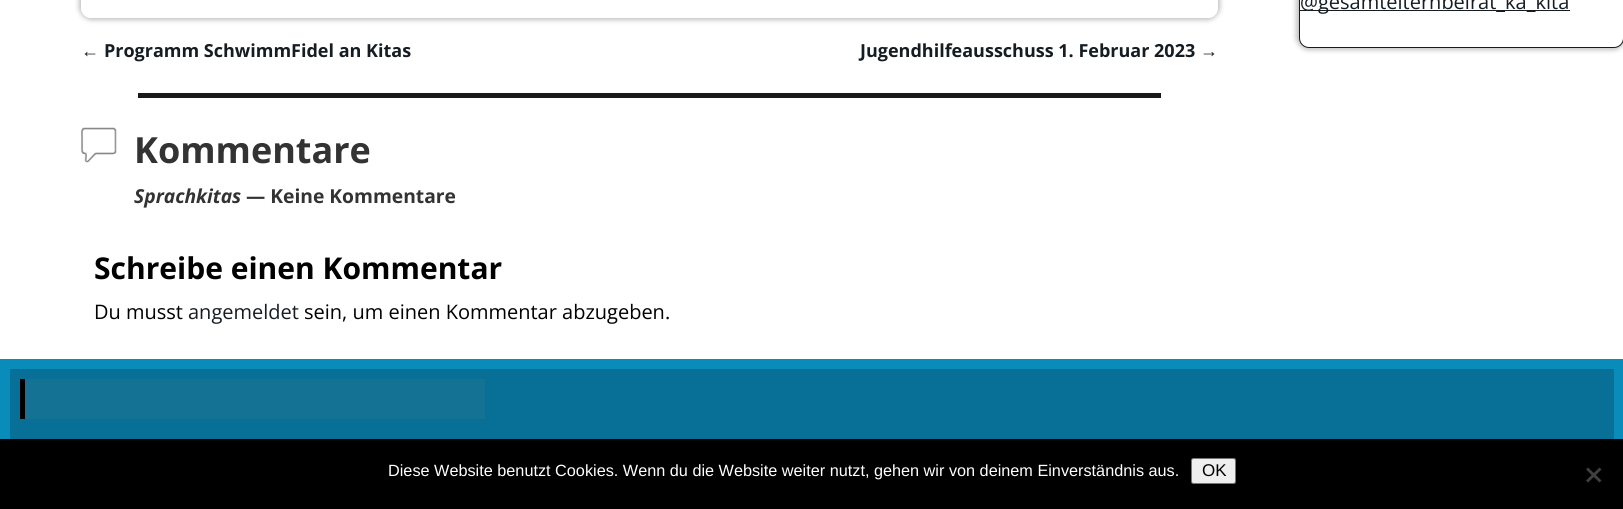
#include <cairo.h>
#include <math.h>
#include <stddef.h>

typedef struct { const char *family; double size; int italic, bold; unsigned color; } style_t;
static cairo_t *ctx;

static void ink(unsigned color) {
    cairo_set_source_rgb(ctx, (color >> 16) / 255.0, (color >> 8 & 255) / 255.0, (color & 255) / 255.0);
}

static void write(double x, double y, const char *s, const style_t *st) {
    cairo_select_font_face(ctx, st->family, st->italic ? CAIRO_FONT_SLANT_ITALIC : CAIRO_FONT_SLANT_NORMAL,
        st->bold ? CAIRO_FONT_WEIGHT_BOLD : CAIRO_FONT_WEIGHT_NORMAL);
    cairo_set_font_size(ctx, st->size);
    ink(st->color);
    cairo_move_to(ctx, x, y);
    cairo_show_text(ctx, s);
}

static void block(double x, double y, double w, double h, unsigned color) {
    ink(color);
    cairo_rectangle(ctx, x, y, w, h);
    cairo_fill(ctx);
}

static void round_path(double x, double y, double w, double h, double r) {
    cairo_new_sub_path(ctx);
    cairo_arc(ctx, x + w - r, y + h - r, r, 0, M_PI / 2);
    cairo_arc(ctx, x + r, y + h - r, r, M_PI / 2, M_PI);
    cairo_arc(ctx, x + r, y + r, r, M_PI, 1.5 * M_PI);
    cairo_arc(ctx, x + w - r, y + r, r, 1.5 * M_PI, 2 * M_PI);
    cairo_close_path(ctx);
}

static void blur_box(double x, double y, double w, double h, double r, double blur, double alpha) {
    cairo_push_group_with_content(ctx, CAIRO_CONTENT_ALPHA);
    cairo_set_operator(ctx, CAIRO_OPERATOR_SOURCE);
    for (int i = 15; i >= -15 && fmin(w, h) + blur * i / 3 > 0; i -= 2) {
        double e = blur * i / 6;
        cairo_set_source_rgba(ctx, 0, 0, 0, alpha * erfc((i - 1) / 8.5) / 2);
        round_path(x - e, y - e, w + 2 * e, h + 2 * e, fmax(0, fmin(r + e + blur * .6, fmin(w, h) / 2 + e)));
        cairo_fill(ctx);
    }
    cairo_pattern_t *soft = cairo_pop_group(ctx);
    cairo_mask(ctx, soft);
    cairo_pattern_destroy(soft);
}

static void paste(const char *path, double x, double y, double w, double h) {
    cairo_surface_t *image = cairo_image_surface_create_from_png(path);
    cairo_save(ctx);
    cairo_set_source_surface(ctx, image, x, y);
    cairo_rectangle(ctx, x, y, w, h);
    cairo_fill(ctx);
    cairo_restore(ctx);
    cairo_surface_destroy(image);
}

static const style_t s1 = {"Open Sans", 20, 0, 0, 0x151c22};
static const style_t s2 = {"Liberation Sans", 18, 0, 0, 0x151c22};
static const style_t s3 = {"Open Sans", 18, 0, 1, 0x151c22};
static const style_t s4 = {"Open Sans", 36, 0, 1, 0x333333};
static const style_t s5 = {"Open Sans", 19.25, 1, 1, 0x333333};
static const style_t s6 = {"Open Sans", 19.25, 0, 1, 0x333333};
static const style_t s7 = {"Open Sans", 30, 0, 1, 0x000000};
static const style_t s8 = {"Open Sans", 20, 0, 0, 0x000000};
static const style_t s9 = {"Liberation Sans", 16.25, 0, 0, 0xffffff};
static const style_t s10 = {"Liberation Sans", 17, 0, 0, 0x000000};

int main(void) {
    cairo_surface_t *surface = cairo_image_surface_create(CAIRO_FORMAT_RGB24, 1623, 509);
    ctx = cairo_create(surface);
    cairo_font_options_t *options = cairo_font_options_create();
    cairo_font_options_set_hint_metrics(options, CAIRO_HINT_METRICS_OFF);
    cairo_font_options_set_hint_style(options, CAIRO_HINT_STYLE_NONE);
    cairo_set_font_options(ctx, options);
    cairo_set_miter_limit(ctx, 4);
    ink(0xffffff);
    cairo_paint(ctx);
    ink(0x000000);
    blur_box(1296, -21, 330, 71, 13, 2.5, 0.25);
    ink(0xffffff);
    round_path(1299.5, -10.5, 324, 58, 9.5);
    cairo_fill_preserve(ctx);
    ink(0x191919);
    cairo_set_line_width(ctx, 1);
    cairo_stroke(ctx);
    block(1300, 10, 270, 1, 0x151c22);
    write(1300, 9, "@gesamtelternbeirat_ka_kita", &s1);
    cairo_save(ctx);
    cairo_set_fill_rule(ctx, CAIRO_FILL_RULE_EVEN_ODD);
    cairo_new_path(ctx);
    cairo_move_to(ctx, 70, 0);
    cairo_line_to(ctx, 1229, 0);
    cairo_line_to(ctx, 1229, 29);
    cairo_line_to(ctx, 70, 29);
    cairo_close_path(ctx);
    cairo_move_to(ctx, 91, -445);
    cairo_line_to(ctx, 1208, -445);
    cairo_curve_to(ctx, 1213.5, -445, 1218, -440.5, 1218, -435);
    cairo_line_to(ctx, 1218, 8);
    cairo_curve_to(ctx, 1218, 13.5, 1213.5, 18, 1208, 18);
    cairo_line_to(ctx, 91, 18);
    cairo_curve_to(ctx, 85.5, 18, 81, 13.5, 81, 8);
    cairo_line_to(ctx, 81, -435);
    cairo_curve_to(ctx, 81, -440.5, 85.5, -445, 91, -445);
    cairo_close_path(ctx);
    cairo_clip(ctx);
    ink(0x000000);
    blur_box(79, -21, 1141, 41, 13, 2.5, 0.25);
    cairo_restore(ctx);
    write(81, 57, "←", &s2);
    write(104, 57, "Programm SchwimmFidel an Kitas", &s3);
    write(860, 57, "Jugendhilfeausschuss 1. Februar 2023", &s3);
    write(1200, 57, "→", &s2);
    block(138, 93, 1023, 5, 0x191919);
    paste("pic1.png", 81, 127, 36, 36);
    write(134, 163, "Kommentare", &s4);
    write(134, 203, "Sprachkitas", &s5);
    write(246, 203, "— Keine Kommentare", &s6);
    write(94, 279, "Schreibe einen Kommentar", &s7);
    write(94, 319, "Du musst", &s8);
    write(188, 319, "angemeldet", &s1);
    write(304, 319, "sein, um einen Kommentar abzugeben.", &s8);
    block(0, 359, 1623, 80, 0x0a8cbb);
    block(10, 369, 1604, 70, 0x087096);
    block(25, 379, 460, 40, 0x147294);
    block(20, 379, 5, 40, 0x000000);
    block(0, 439, 1623, 70, 0x000000);
    write(388, 476, "Diese Website benutzt Cookies. Wenn du die Website weiter nutzt, gehen wir von deinem Einverständnis aus.", &s9);
    ink(0xefefef);
    round_path(1191.5, 458.5, 44, 25, 2);
    cairo_fill_preserve(ctx);
    ink(0x767676);
    cairo_stroke(ctx);
    write(1202, 476, "OK", &s10);
    ink(0x404040);
    cairo_new_path(ctx);
    cairo_move_to(ctx, 1599.5, 467.5);
    cairo_line_to(ctx, 1601.5, 469.5);
    cairo_line_to(ctx, 1588, 482.5);
    cairo_line_to(ctx, 1586, 480.5);
    cairo_close_path(ctx);
    cairo_fill(ctx);
    cairo_new_path(ctx);
    cairo_move_to(ctx, 1586, 469.5);
    cairo_line_to(ctx, 1588, 467.5);
    cairo_line_to(ctx, 1601.5, 480.5);
    cairo_line_to(ctx, 1599.5, 482.5);
    cairo_close_path(ctx);
    cairo_fill(ctx);
    cairo_surface_write_to_png(surface, "screenshot.png");
    cairo_font_options_destroy(options);
    cairo_destroy(ctx);
    cairo_surface_destroy(surface);
    return 0;
}
